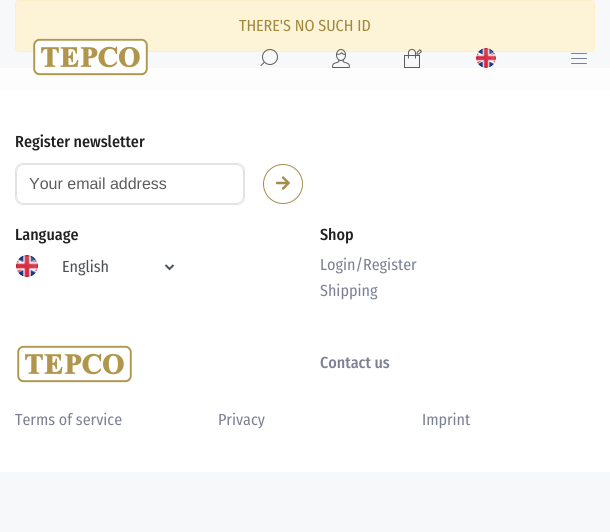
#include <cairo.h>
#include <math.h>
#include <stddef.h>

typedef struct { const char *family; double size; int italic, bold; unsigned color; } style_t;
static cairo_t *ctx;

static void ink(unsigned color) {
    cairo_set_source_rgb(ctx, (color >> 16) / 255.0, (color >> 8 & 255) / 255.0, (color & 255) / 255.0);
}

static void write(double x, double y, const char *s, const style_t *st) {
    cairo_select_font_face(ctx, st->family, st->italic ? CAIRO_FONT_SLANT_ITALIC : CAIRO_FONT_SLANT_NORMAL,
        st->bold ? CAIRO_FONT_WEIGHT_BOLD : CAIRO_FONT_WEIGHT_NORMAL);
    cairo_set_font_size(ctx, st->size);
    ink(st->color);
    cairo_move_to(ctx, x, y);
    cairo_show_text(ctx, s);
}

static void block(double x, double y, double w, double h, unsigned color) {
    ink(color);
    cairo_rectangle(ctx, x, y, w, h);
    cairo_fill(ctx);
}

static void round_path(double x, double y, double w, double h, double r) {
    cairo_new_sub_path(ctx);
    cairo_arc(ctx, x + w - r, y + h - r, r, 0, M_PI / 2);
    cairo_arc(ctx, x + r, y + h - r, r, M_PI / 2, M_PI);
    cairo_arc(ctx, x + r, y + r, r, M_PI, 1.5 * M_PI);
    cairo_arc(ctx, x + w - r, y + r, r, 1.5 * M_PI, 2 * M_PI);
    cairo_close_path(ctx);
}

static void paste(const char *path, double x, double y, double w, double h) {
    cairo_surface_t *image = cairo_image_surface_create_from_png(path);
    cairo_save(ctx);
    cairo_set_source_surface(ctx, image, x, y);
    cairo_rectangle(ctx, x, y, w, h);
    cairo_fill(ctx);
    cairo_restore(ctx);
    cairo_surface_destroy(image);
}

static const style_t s1 = {"Fira Sans Condensed", 16, 0, 0, 0xa0883f};
static const style_t s2 = {"Fira Sans Condensed Medium", 16, 0, 0, 0x212121};
static const style_t s3 = {"Liberation Sans", 16, 0, 0, 0x5c5c5c};
static const style_t s4 = {"Fira Sans Condensed", 16, 0, 0, 0x495057};
static const style_t s5 = {"Fira Sans Condensed", 16, 0, 0, 0x7c8093};
static const style_t s6 = {"Fira Sans Condensed Medium", 16, 0, 0, 0x7c8093};

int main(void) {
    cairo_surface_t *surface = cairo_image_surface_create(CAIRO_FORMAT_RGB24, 610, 532);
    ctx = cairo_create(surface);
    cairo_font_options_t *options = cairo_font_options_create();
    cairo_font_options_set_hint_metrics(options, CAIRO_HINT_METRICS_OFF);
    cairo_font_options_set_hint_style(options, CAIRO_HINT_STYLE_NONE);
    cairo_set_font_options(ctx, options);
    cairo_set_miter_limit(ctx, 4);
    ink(0xf7f8fa);
    cairo_paint(ctx);
    ink(0xfdf4d8);
    round_path(15.5, 0.5, 579, 51, 3.5);
    cairo_fill_preserve(ctx);
    ink(0xfdf0c9);
    cairo_set_line_width(ctx, 1);
    cairo_stroke(ctx);
    write(239, 31, "THERE'S NO SUCH ID", &s1);
    block(0, 68, 610, 22, 0xfdfdfe);
    paste("pic1.png", 33, 38, 115, 38);
    cairo_arc(ctx, 270, 57, 7.5, 0, 2 * M_PI);
    ink(0x5c5c5c);
    cairo_stroke(ctx);
    cairo_new_path(ctx);
    cairo_move_to(ctx, 264, 62.5);
    cairo_line_to(ctx, 261, 65.5);
    cairo_set_line_cap(ctx, CAIRO_LINE_CAP_ROUND);
    cairo_set_line_join(ctx, CAIRO_LINE_JOIN_ROUND);
    cairo_stroke(ctx);
    paste("pic2.png", 332, 49, 18, 19);
    paste("pic3.png", 404, 49, 18, 19);
    paste("pic4.png", 476, 48, 20, 20);
    paste("pic5.png", 571, 53, 16, 11);
    block(0, 90, 610, 382, 0xffffff);
    write(15, 147, "Register newsletter", &s2);
    round_path(15.5, 163.5, 229, 41, 7.5);
    ink(0xe3e3e3);
    cairo_set_line_cap(ctx, CAIRO_LINE_CAP_BUTT);
    cairo_set_line_join(ctx, CAIRO_LINE_JOIN_MITER);
    cairo_stroke(ctx);
    round_path(16.5, 164.5, 227, 39, 7.5);
    cairo_stroke(ctx);
    write(29, 189, "Your email address", &s3);
    cairo_new_path(ctx);
    cairo_arc(ctx, 283, 184, 19.5, 0, 2 * M_PI);
    ink(0xa48d4f);
    cairo_stroke(ctx);
    paste("pic6.png", 276, 176, 14, 14);
    write(15, 240, "Language", &s2);
    paste("pic7.png", 16, 255, 22, 22);
    cairo_new_path(ctx);
    cairo_move_to(ctx, 165.5, 265);
    cairo_line_to(ctx, 169.5, 269);
    cairo_line_to(ctx, 173.5, 265);
    ink(0x495057);
    cairo_set_line_width(ctx, 2);
    cairo_stroke(ctx);
    write(62, 272, "English", &s4);
    write(320, 240, "Shop", &s2);
    write(320, 270, "Login/Register", &s5);
    write(320, 296, "Shipping", &s5);
    paste("pic8.png", 17, 345, 115, 38);
    write(320, 368, "Contact us", &s6);
    write(15, 425, "Terms of service", &s5);
    write(218, 425, "Privacy", &s5);
    write(422, 425, "Imprint", &s5);
    cairo_surface_write_to_png(surface, "screenshot.png");
    cairo_font_options_destroy(options);
    cairo_destroy(ctx);
    cairo_surface_destroy(surface);
    return 0;
}
